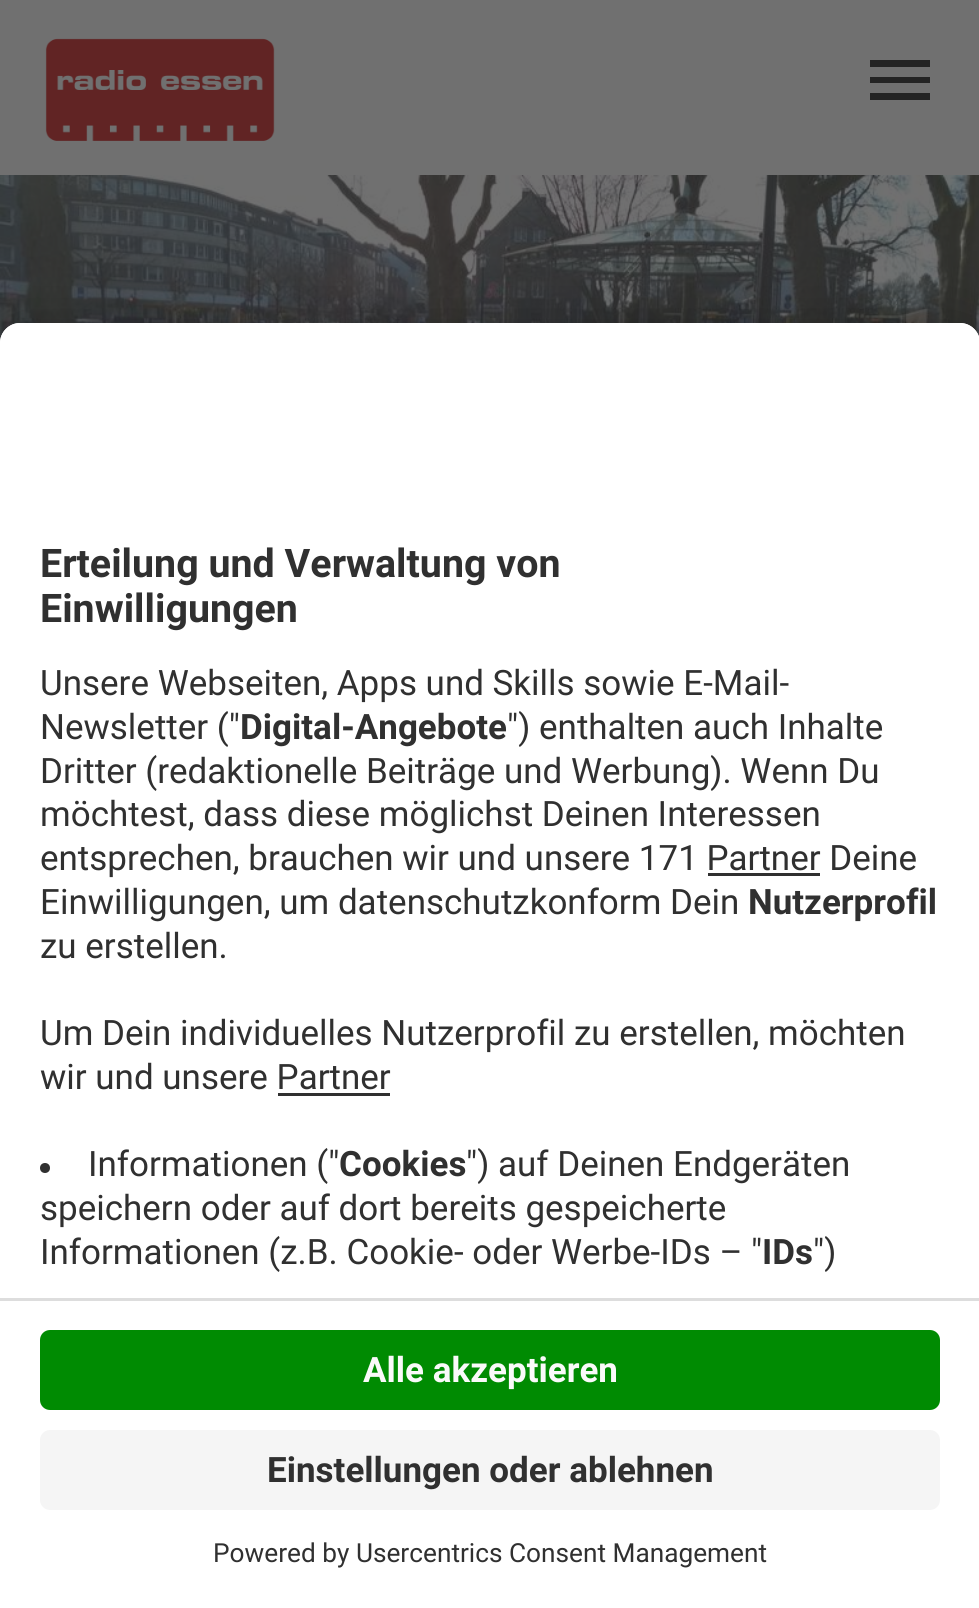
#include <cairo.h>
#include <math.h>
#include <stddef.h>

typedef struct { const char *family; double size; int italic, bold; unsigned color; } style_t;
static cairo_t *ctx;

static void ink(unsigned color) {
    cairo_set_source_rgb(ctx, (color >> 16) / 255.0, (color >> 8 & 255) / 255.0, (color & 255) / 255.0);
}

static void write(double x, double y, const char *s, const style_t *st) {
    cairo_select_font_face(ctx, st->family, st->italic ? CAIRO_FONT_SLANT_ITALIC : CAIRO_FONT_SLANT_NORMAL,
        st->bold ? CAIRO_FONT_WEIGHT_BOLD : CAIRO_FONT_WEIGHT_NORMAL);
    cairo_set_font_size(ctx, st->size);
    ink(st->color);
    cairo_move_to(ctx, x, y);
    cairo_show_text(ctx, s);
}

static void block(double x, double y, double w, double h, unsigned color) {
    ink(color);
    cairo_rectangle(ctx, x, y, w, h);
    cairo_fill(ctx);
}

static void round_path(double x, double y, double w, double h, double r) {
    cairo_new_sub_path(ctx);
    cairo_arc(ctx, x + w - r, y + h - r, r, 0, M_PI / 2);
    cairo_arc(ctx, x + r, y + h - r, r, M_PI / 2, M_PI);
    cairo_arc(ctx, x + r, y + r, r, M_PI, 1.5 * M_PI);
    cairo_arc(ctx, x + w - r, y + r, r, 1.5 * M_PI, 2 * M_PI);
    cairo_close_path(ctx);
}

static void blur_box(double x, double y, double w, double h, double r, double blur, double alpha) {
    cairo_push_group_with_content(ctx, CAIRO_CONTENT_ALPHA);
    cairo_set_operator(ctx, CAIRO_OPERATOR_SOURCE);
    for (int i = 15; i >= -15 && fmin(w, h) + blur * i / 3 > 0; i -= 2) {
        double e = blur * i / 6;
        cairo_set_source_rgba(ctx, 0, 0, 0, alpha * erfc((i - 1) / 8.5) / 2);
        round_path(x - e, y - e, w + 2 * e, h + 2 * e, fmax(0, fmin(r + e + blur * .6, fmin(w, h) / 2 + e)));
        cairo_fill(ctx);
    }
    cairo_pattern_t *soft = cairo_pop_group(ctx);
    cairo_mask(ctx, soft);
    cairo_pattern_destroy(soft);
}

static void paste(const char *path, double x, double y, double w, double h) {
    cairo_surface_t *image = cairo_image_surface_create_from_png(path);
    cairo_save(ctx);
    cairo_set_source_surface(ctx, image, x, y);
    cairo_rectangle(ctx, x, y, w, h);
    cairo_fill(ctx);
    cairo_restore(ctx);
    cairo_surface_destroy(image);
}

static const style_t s1 = {"Roboto", 39.4, 0, 1, 0x303030};
static const style_t s2 = {"Roboto", 35, 0, 0, 0x303030};
static const style_t s3 = {"Roboto", 35, 0, 1, 0x303030};
static const style_t s4 = {"Roboto", 35, 0, 1, 0xfafafa};
static const style_t s5 = {"Roboto", 26.25, 0, 0, 0x303030};

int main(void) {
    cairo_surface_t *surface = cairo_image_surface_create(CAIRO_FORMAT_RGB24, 979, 1608);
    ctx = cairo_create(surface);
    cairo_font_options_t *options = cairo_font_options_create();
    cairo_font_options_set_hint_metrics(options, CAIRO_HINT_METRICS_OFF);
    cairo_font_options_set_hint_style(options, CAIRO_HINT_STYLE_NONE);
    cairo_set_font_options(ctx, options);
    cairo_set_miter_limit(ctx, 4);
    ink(0x707070);
    cairo_paint(ctx);
    paste("pic1.png", 45, 38, 230, 103);
    ink(0x242424);
    cairo_new_path(ctx);
    cairo_move_to(ctx, 870, 100);
    cairo_line_to(ctx, 870, 93);
    cairo_line_to(ctx, 930, 93);
    cairo_line_to(ctx, 930, 100);
    cairo_close_path(ctx);
    cairo_move_to(ctx, 870, 83);
    cairo_line_to(ctx, 870, 77);
    cairo_line_to(ctx, 930, 77);
    cairo_line_to(ctx, 930, 83);
    cairo_close_path(ctx);
    cairo_move_to(ctx, 870, 67);
    cairo_line_to(ctx, 870, 60);
    cairo_line_to(ctx, 930, 60);
    cairo_line_to(ctx, 930, 67);
    cairo_close_path(ctx);
    cairo_fill(ctx);
    paste("pic2.png", 0, 175, 979, 168);
    ink(0x000000);
    blur_box(0, 373, 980, 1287, 20, 35, 0.3);
    blur_box(0, 335, 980, 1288, 20, 32.5, 0.22);
    ink(0xffffff);
    cairo_new_path(ctx);
    cairo_move_to(ctx, 20, 323);
    cairo_line_to(ctx, 960, 323);
    cairo_curve_to(ctx, 971, 323, 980, 332, 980, 343);
    cairo_line_to(ctx, 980, 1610);
    cairo_line_to(ctx, 0, 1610);
    cairo_line_to(ctx, 0, 343);
    cairo_curve_to(ctx, 0, 332, 9, 323, 20, 323);
    cairo_close_path(ctx);
    cairo_fill(ctx);
    cairo_new_path(ctx);
    cairo_move_to(ctx, 20, 323);
    cairo_line_to(ctx, 960, 323);
    cairo_curve_to(ctx, 971, 323, 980, 332, 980, 343);
    cairo_line_to(ctx, 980, 1298);
    cairo_line_to(ctx, 0, 1298);
    cairo_line_to(ctx, 0, 343);
    cairo_curve_to(ctx, 0, 332, 9, 323, 20, 323);
    cairo_close_path(ctx);
    cairo_fill(ctx);
    write(40, 577, "Erteilung und Verwaltung von", &s1);
    write(40, 622, "Einwilligungen", &s1);
    write(40, 695, "Unsere Webseiten, Apps und Skills sowie E-Mail-", &s2);
    write(40, 739, "Newsletter (\"", &s2);
    write(240, 739, "Digital-Angebote", &s3);
    write(507, 739, "\") enthalten auch Inhalte", &s2);
    write(40, 783, "Dritter (redaktionelle Beiträge und Werbung). Wenn Du", &s2);
    write(40, 826, "möchtest, dass diese möglichst Deinen Interessen", &s2);
    write(40, 870, "entsprechen, brauchen wir und unsere 171 Partner Deine", &s2);
    block(708, 873, 112, 3, 0x303030);
    write(40, 914, "Einwilligungen, um datenschutzkonform Dein", &s2);
    write(748, 914, "Nutzerprofil", &s3);
    write(40, 958, "zu erstellen.", &s2);
    write(40, 1045, "Um Dein individuelles Nutzerprofil zu erstellen, möchten", &s2);
    write(40, 1089, "wir und unsere Partner", &s2);
    block(278, 1093, 112, 3, 0x303030);
    cairo_new_path(ctx);
    cairo_arc(ctx, 45, 1168, 5, 0, 2 * M_PI);
    cairo_fill(ctx);
    write(88, 1176, "Informationen (\"", &s2);
    write(339, 1176, "Cookies", &s3);
    write(466, 1176, "\") auf Deinen Endgeräten", &s2);
    write(40, 1220, "speichern oder auf dort bereits gespeicherte", &s2);
    write(40, 1264, "Informationen (z.B. Cookie- oder Werbe-IDs – \"", &s2);
    write(762, 1264, "IDs", &s3);
    write(813, 1264, "\")", &s2);
    block(0, 1298, 979, 3, 0xdddddd);
    ink(0x008b02);
    round_path(40, 1330, 900, 80, 10);
    cairo_fill(ctx);
    write(363, 1382, "Alle akzeptieren", &s4);
    ink(0xf5f5f5);
    round_path(40, 1430, 900, 80, 10);
    cairo_fill(ctx);
    write(267, 1482, "Einstellungen oder ablehnen", &s3);
    write(213, 1562, "Powered by Usercentrics Consent Management", &s5);
    cairo_surface_write_to_png(surface, "screenshot.png");
    cairo_font_options_destroy(options);
    cairo_destroy(ctx);
    cairo_surface_destroy(surface);
    return 0;
}
